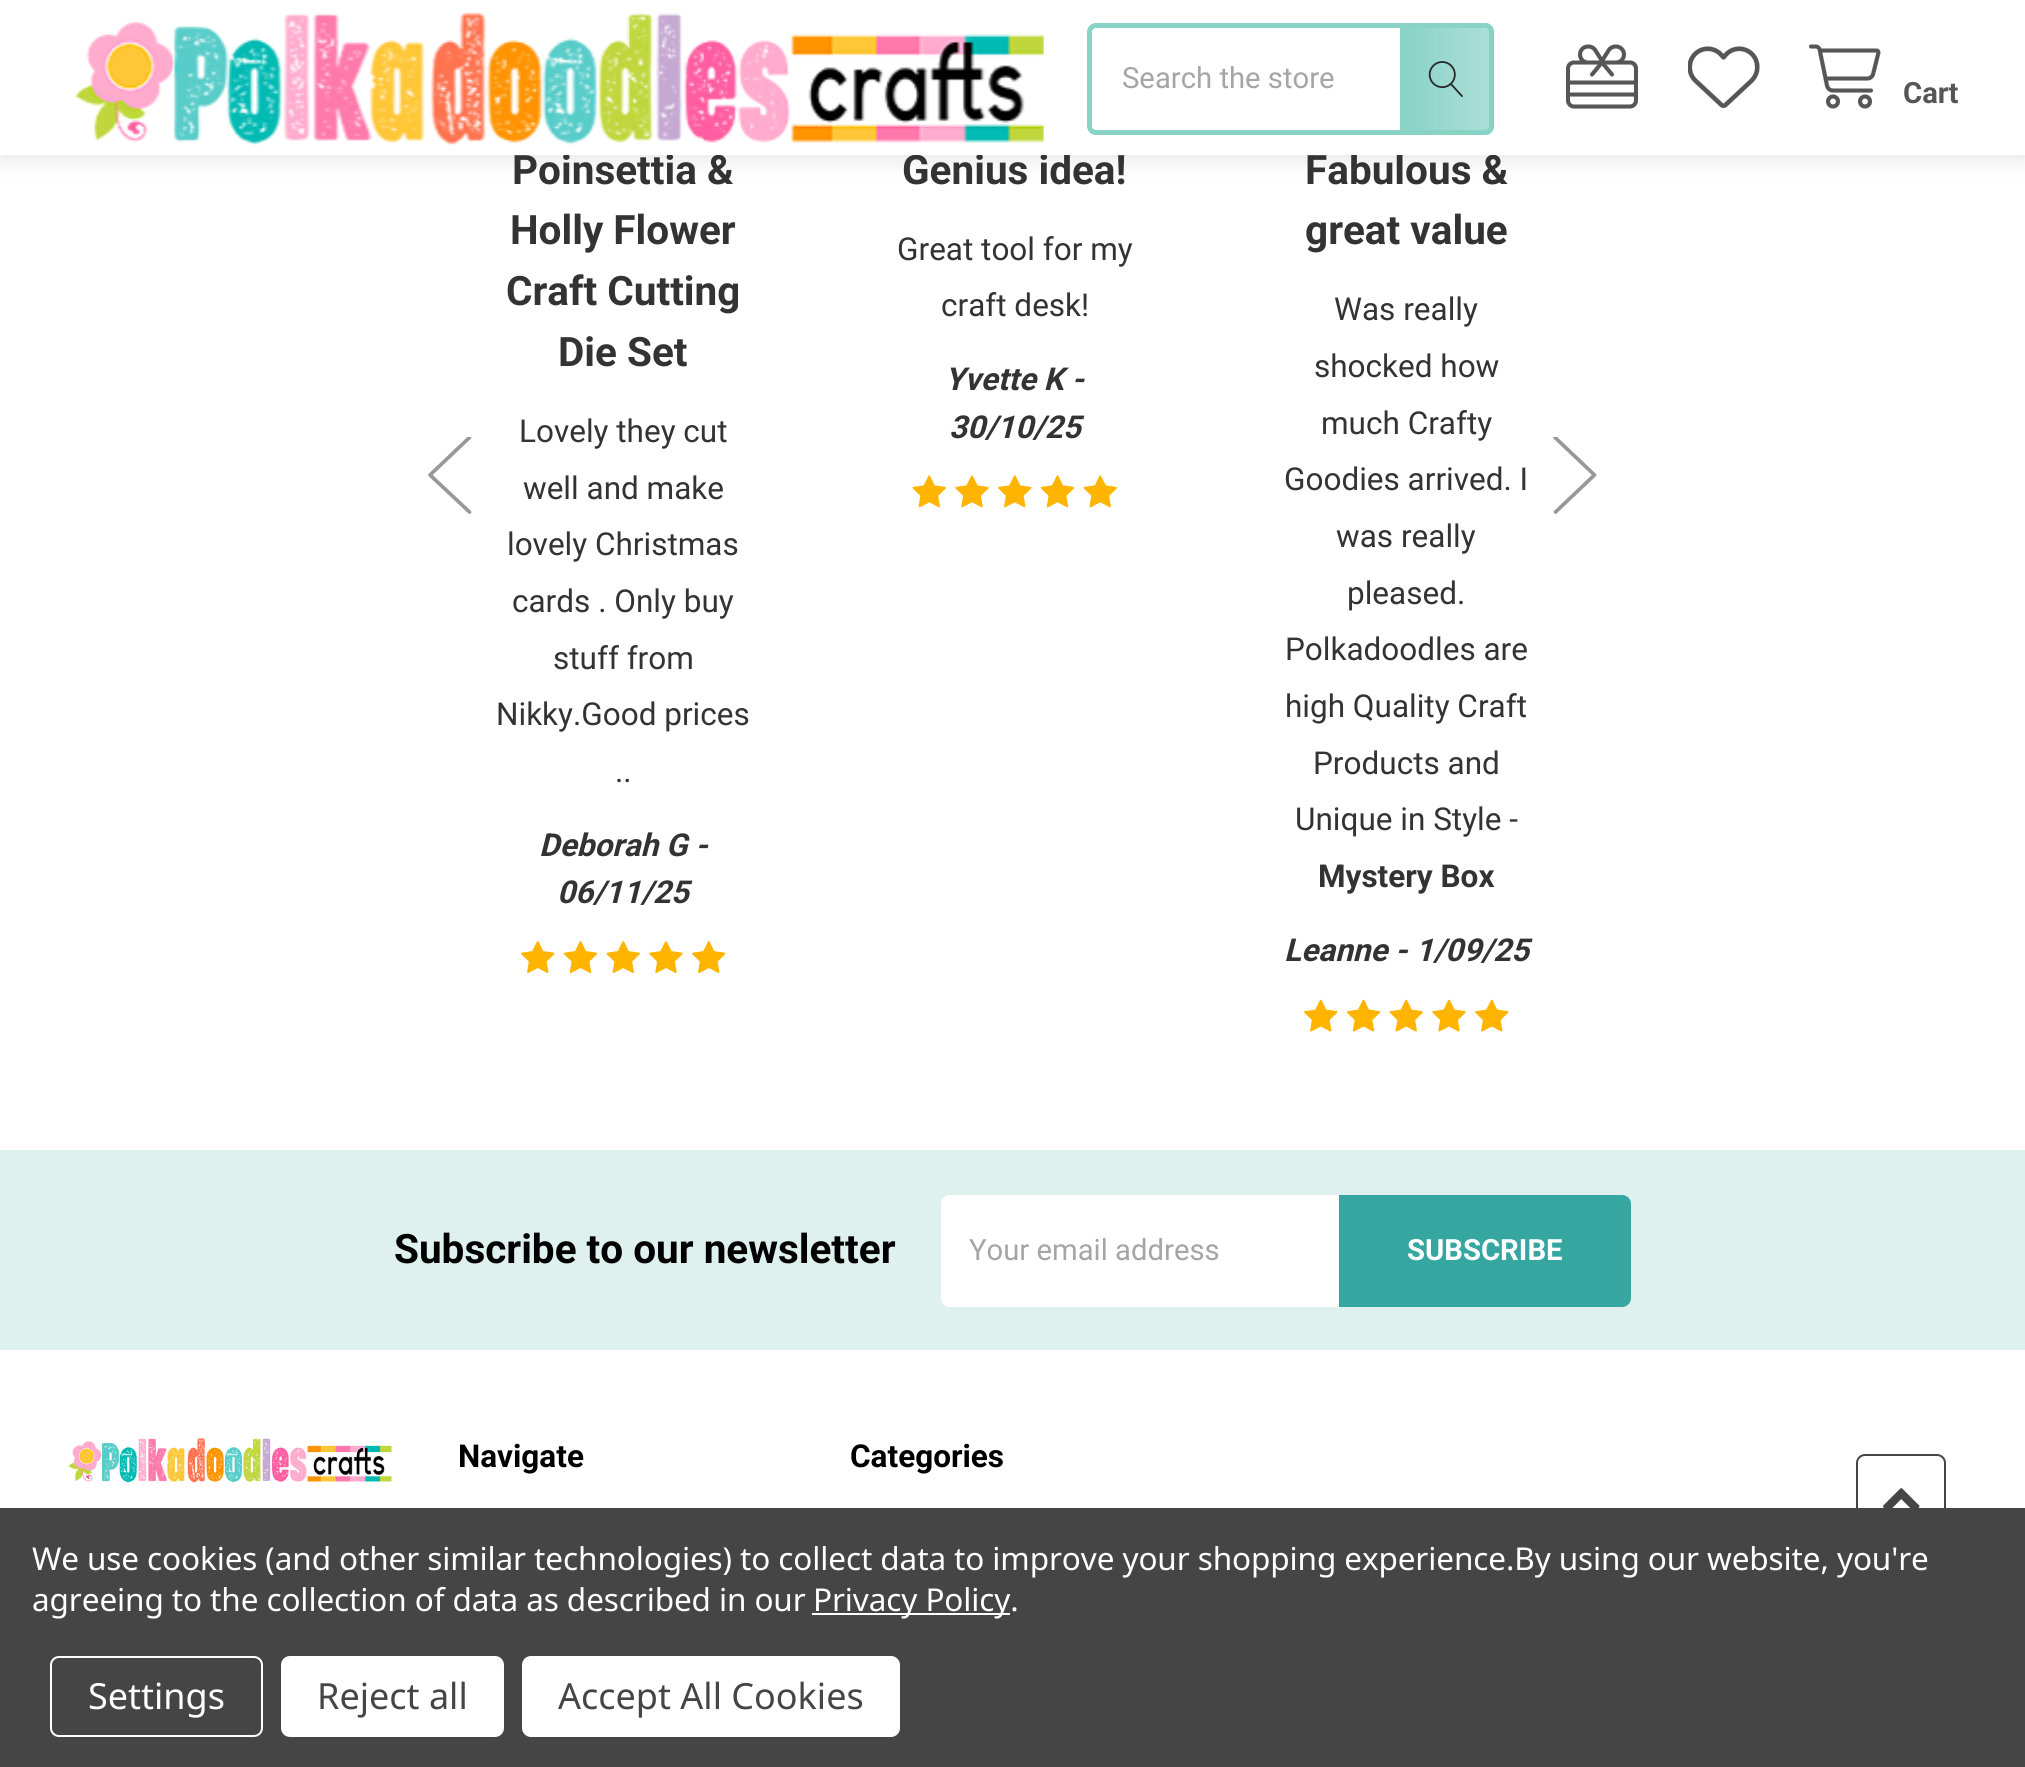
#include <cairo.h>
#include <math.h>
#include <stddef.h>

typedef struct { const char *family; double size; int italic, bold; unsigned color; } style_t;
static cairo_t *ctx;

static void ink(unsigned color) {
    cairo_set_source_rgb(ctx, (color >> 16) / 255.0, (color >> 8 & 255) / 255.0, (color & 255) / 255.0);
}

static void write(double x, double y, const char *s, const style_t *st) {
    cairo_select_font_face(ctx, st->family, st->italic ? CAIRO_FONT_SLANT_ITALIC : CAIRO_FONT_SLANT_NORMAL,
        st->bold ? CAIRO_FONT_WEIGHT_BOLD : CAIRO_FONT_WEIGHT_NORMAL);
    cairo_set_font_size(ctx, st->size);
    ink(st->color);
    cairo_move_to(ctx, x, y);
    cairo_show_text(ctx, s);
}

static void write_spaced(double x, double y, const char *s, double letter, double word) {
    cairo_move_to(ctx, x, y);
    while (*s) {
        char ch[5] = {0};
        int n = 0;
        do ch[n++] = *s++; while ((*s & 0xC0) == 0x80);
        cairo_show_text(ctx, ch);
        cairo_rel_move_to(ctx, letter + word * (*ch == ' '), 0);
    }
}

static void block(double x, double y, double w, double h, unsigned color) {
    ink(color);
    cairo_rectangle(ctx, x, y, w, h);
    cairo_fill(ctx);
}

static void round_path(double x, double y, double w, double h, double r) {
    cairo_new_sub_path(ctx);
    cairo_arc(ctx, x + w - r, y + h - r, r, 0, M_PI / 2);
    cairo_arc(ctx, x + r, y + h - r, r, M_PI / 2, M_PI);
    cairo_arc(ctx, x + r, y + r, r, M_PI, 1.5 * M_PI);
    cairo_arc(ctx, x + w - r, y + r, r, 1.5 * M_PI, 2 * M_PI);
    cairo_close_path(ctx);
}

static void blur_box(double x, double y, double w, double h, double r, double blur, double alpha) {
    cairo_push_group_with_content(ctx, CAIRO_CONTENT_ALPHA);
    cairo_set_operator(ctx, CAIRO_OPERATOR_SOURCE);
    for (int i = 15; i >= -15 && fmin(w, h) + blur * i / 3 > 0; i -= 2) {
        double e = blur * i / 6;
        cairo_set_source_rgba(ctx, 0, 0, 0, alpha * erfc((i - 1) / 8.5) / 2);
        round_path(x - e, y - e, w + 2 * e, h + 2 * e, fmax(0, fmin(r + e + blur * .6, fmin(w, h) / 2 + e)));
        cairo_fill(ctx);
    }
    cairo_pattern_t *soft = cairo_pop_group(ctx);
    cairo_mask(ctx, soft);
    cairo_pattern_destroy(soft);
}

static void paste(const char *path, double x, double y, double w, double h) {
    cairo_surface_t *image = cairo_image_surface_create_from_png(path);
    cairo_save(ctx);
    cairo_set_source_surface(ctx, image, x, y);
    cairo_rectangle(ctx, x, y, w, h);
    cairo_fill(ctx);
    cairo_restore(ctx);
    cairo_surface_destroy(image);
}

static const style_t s1 = {"Roboto", 40.5, 0, 1, 0x333333};
static const style_t s2 = {"Roboto", 29.25, 0, 0, 0xa5a5a5};
static const style_t s3 = {"Roboto", 29.25, 0, 1, 0x565656};
static const style_t s4 = {"Roboto", 31.5, 0, 0, 0x333333};
static const style_t s5 = {"Roboto", 31.5, 1, 1, 0x333333};
static const style_t s6 = {"Roboto", 31.5, 0, 1, 0x333333};
static const style_t s7 = {"Roboto", 40.5, 0, 1, 0x000000};
static const style_t s8 = {"Roboto", 29.25, 0, 1, 0xffffff};
static const style_t s9 = {"Roboto", 31.5, 0, 1, 0x000000};
static const style_t s10 = {"Noto Sans", 36, 0, 0, 0xffffff};
static const style_t s11 = {"Noto Sans", 36, 0, 0, 0x454545};

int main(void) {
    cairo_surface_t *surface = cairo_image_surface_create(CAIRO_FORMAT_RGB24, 2025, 1767);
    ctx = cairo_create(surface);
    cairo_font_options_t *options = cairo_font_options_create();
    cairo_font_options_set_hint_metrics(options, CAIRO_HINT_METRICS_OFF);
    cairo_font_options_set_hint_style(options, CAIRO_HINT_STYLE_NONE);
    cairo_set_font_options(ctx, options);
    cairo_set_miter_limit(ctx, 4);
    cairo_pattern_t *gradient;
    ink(0xffffff);
    cairo_paint(ctx);
    ink(0x000000);
    blur_box(0, 5, 2025, 155, 0, 11, 0.1);
    write(512, 184, "Poinsettia &", &s1);
    write(902, 184, "Genius idea!", &s1);
    write(1305, 184, "Fabulous &", &s1);
    block(0, 0, 2025, 155, 0xffffff);
    paste("pic1.png", 74, 12, 970, 133);
    round_path(1089.5, 25.5, 402, 107, 6.5);
    ink(0x88d2c6);
    cairo_set_line_width(ctx, 5);
    cairo_stroke(ctx);
    write(1122, 88, "Search the store", &s2);
    gradient = cairo_pattern_create_linear(1400, 79, 1494, 79);
    cairo_pattern_add_color_stop_rgba(gradient, 0, 0.533, 0.824, 0.776, 1);
    cairo_pattern_add_color_stop_rgba(gradient, 1, 0.533, 0.824, 0.776, 0.7);
    cairo_set_source(ctx, gradient);
    cairo_pattern_destroy(gradient);
    cairo_new_path(ctx);
    cairo_move_to(ctx, 1400, 23);
    cairo_line_to(ctx, 1485, 23);
    cairo_curve_to(ctx, 1490, 23, 1494, 27, 1494, 32);
    cairo_line_to(ctx, 1494, 126);
    cairo_curve_to(ctx, 1494, 131, 1490, 135, 1485, 135);
    cairo_line_to(ctx, 1400, 135);
    cairo_close_path(ctx);
    cairo_fill(ctx);
    paste("pic2.png", 1428, 61, 35, 36);
    paste("pic3.png", 1566, 44, 72, 65);
    paste("pic4.png", 1688, 46, 72, 62);
    paste("pic5.png", 1809, 44, 72, 65);
    write(1903, 103, "Cart", &s3);
    cairo_save(ctx);
    cairo_rectangle(ctx, 428, 437, 45, 78);
    cairo_clip(ctx);
    cairo_new_path(ctx);
    cairo_move_to(ctx, 469.5, 437.5);
    cairo_line_to(ctx, 430, 475);
    cairo_line_to(ctx, 469.5, 512);
    ink(0x989898);
    cairo_set_line_width(ctx, 3.7);
    cairo_set_line_cap(ctx, CAIRO_LINE_CAP_ROUND);
    cairo_set_line_join(ctx, CAIRO_LINE_JOIN_ROUND);
    cairo_stroke(ctx);
    cairo_restore(ctx);
    write(510, 244, "Holly Flower", &s1);
    write(506, 305, "Craft Cutting", &s1);
    write(558, 366, "Die Set", &s1);
    write(519, 442, "Lovely they cut", &s4);
    write(523, 499, "well and make", &s4);
    write(507, 555, "lovely Christmas", &s4);
    write(512, 612, "cards . Only buy", &s4);
    write(553, 669, "stuff from", &s4);
    write(496, 725, "Nikky.Good prices", &s4);
    write(615, 782, "..", &s4);
    write(539, 856, "Deborah G -", &s5);
    write(557, 903, "06/11/25", &s5);
    paste("pic6.png", 521, 941, 34, 32);
    paste("pic7.png", 563, 941, 35, 32);
    paste("pic8.png", 606, 941, 34, 32);
    paste("pic9.png", 649, 941, 34, 32);
    paste("pic6.png", 692, 941, 34, 32);
    write(897, 260, "Great tool for my", &s4);
    write(941, 316, "craft desk!", &s4);
    write(945, 390, "Yvette K -", &s5);
    write(949, 438, "30/10/25", &s5);
    paste("pic10.png", 912, 475, 34, 33);
    paste("pic11.png", 955, 475, 34, 33);
    paste("pic12.png", 998, 475, 34, 33);
    paste("pic13.png", 1040, 475, 35, 33);
    paste("pic10.png", 1083, 475, 34, 33);
    write(1305, 244, "great value", &s1);
    write(1334, 320, "Was really", &s4);
    write(1314, 377, "shocked how", &s4);
    write(1321, 434, "much Crafty", &s4);
    write(1284, 490, "Goodies arrived. I", &s4);
    write(1336, 547, "was really", &s4);
    write(1347, 604, "pleased.", &s4);
    write(1285, 660, "Polkadoodles are", &s4);
    write(1285, 717, "high Quality Craft", &s4);
    write(1313, 774, "Products and", &s4);
    write(1295, 830, "Unique in Style -", &s4);
    write(1318, 887, "Mystery Box", &s6);
    write(1284, 961, "Leanne - 1/09/25", &s5);
    paste("pic14.png", 1304, 999, 34, 33);
    paste("pic15.png", 1346, 999, 35, 33);
    paste("pic16.png", 1389, 999, 34, 33);
    paste("pic17.png", 1432, 999, 34, 33);
    paste("pic14.png", 1475, 999, 34, 33);
    cairo_save(ctx);
    cairo_rectangle(ctx, 1553, 437, 45, 78);
    cairo_clip(ctx);
    cairo_new_path(ctx);
    cairo_move_to(ctx, 1555, 437.5);
    cairo_line_to(ctx, 1594.5, 475);
    cairo_line_to(ctx, 1555.5, 512);
    ink(0x989898);
    cairo_set_line_width(ctx, 3.7);
    cairo_set_line_cap(ctx, CAIRO_LINE_CAP_ROUND);
    cairo_set_line_join(ctx, CAIRO_LINE_JOIN_ROUND);
    cairo_stroke(ctx);
    cairo_restore(ctx);
    block(0, 1150, 2025, 200, 0xdef1ee);
    write(394, 1263, "Subscribe to our newsletter", &s7);
    ink(0xffffff);
    cairo_new_path(ctx);
    cairo_move_to(ctx, 950, 1195);
    cairo_line_to(ctx, 1339, 1195);
    cairo_line_to(ctx, 1339, 1307);
    cairo_line_to(ctx, 950, 1307);
    cairo_curve_to(ctx, 945, 1307, 941, 1303, 941, 1298);
    cairo_line_to(ctx, 941, 1204);
    cairo_curve_to(ctx, 941, 1199, 945, 1195, 950, 1195);
    cairo_close_path(ctx);
    cairo_fill(ctx);
    write(969, 1260, "Your email address", &s2);
    ink(0x36a7a0);
    cairo_new_path(ctx);
    cairo_move_to(ctx, 1340, 1196);
    cairo_line_to(ctx, 1622, 1196);
    cairo_curve_to(ctx, 1626.5, 1196, 1630, 1199.5, 1630, 1204);
    cairo_line_to(ctx, 1630, 1298);
    cairo_curve_to(ctx, 1630, 1302.5, 1626.5, 1306, 1622, 1306);
    cairo_line_to(ctx, 1340, 1306);
    cairo_close_path(ctx);
    cairo_fill_preserve(ctx);
    cairo_set_line_width(ctx, 2);
    cairo_stroke(ctx);
    write(1407, 1260, "SUBSCRIBE", &s8);
    paste("pic18.png", 68, 1438, 324, 45);
    write(458, 1467, "Navigate", &s9);
    write(850, 1467, "Categories", &s9);
    round_path(1857, 1455, 88, 88, 8);
    ink(0x454545);
    cairo_stroke(ctx);
    paste("pic19.png", 1883, 1488, 37, 20);
    block(0, 1508, 2025, 259, 0x454545);
    cairo_select_font_face(ctx, "Noto Sans", CAIRO_FONT_SLANT_NORMAL, CAIRO_FONT_WEIGHT_NORMAL);
    ink(0xffffff);
    write_spaced(32, 1570, "We use cookies (and other similar technologies) to collect data to improve your shopping experience.By using our website, you're", -0.11, 0);
    write_spaced(32, 1611, "agreeing to the collection of data as described in our", -0.11, 0);
    block(812, 1613, 198, 2, 0xffffff);
    write_spaced(813, 1611, "Privacy Policy.", -0.11, 0);
    round_path(51, 1657, 211, 79, 8);
    cairo_stroke(ctx);
    write(88, 1709, "Settings", &s10);
    round_path(281, 1656, 223, 81, 9);
    cairo_fill(ctx);
    write(317, 1709, "Reject all", &s11);
    ink(0xffffff);
    round_path(522, 1656, 378, 81, 9);
    cairo_fill(ctx);
    write(558, 1709, "Accept All Cookies", &s11);
    cairo_surface_write_to_png(surface, "screenshot.png");
    cairo_font_options_destroy(options);
    cairo_destroy(ctx);
    cairo_surface_destroy(surface);
    return 0;
}
